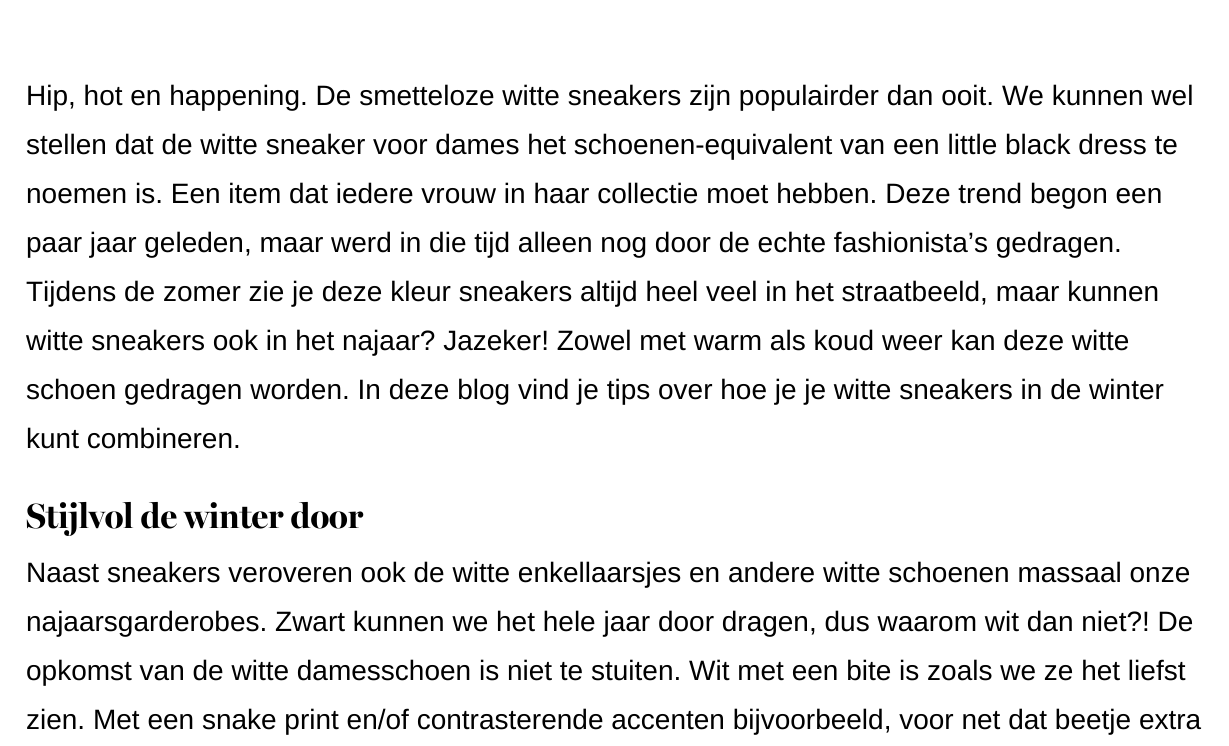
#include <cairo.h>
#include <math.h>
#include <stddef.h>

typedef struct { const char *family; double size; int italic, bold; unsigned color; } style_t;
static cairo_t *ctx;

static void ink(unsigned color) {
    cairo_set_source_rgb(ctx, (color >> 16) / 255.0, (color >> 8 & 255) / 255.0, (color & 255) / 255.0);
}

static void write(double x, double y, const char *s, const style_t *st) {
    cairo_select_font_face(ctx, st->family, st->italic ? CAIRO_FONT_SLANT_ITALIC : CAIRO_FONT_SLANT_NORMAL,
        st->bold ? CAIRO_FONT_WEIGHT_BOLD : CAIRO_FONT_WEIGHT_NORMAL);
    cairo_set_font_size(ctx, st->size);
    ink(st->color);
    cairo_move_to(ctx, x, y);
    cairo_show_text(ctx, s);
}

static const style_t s1 = {"Liberation Sans", 28, 0, 0, 0x000000};
static const style_t s2 = {"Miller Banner", 35, 0, 1, 0x000000};

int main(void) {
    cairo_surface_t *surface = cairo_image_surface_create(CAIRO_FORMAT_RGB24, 1229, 746);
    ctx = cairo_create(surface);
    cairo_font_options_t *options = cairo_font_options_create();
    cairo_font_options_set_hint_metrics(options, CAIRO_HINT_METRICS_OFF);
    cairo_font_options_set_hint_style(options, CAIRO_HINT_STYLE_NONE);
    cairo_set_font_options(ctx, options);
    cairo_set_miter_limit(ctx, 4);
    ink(0xffffff);
    cairo_paint(ctx);
    write(26, 105, "Hip, hot en happening. De smetteloze witte sneakers zijn populairder dan ooit. We kunnen wel", &s1);
    write(26, 154, "stellen dat de witte sneaker voor dames het schoenen-equivalent van een little black dress te", &s1);
    write(26, 203, "noemen is. Een item dat iedere vrouw in haar collectie moet hebben. Deze trend begon een", &s1);
    write(26, 252, "paar jaar geleden, maar werd in die tijd alleen nog door de echte fashionista’s gedragen.", &s1);
    write(26, 301, "Tijdens de zomer zie je deze kleur sneakers altijd heel veel in het straatbeeld, maar kunnen", &s1);
    write(26, 350, "witte sneakers ook in het najaar? Jazeker! Zowel met warm als koud weer kan deze witte", &s1);
    write(26, 399, "schoen gedragen worden. In deze blog vind je tips over hoe je je witte sneakers in de winter", &s1);
    write(26, 448, "kunt combineren.", &s1);
    write(26, 528, "Stijlvol de winter door", &s2);
    write(26, 582, "Naast sneakers veroveren ook de witte enkellaarsjes en andere witte schoenen massaal onze", &s1);
    write(26, 631, "najaarsgarderobes. Zwart kunnen we het hele jaar door dragen, dus waarom wit dan niet?! De", &s1);
    write(26, 680, "opkomst van de witte damesschoen is niet te stuiten. Wit met een bite is zoals we ze het liefst", &s1);
    write(26, 729, "zien. Met een snake print en/of contrasterende accenten bijvoorbeeld, voor net dat beetje extra", &s1);
    cairo_surface_write_to_png(surface, "screenshot.png");
    cairo_font_options_destroy(options);
    cairo_destroy(ctx);
    cairo_surface_destroy(surface);
    return 0;
}
